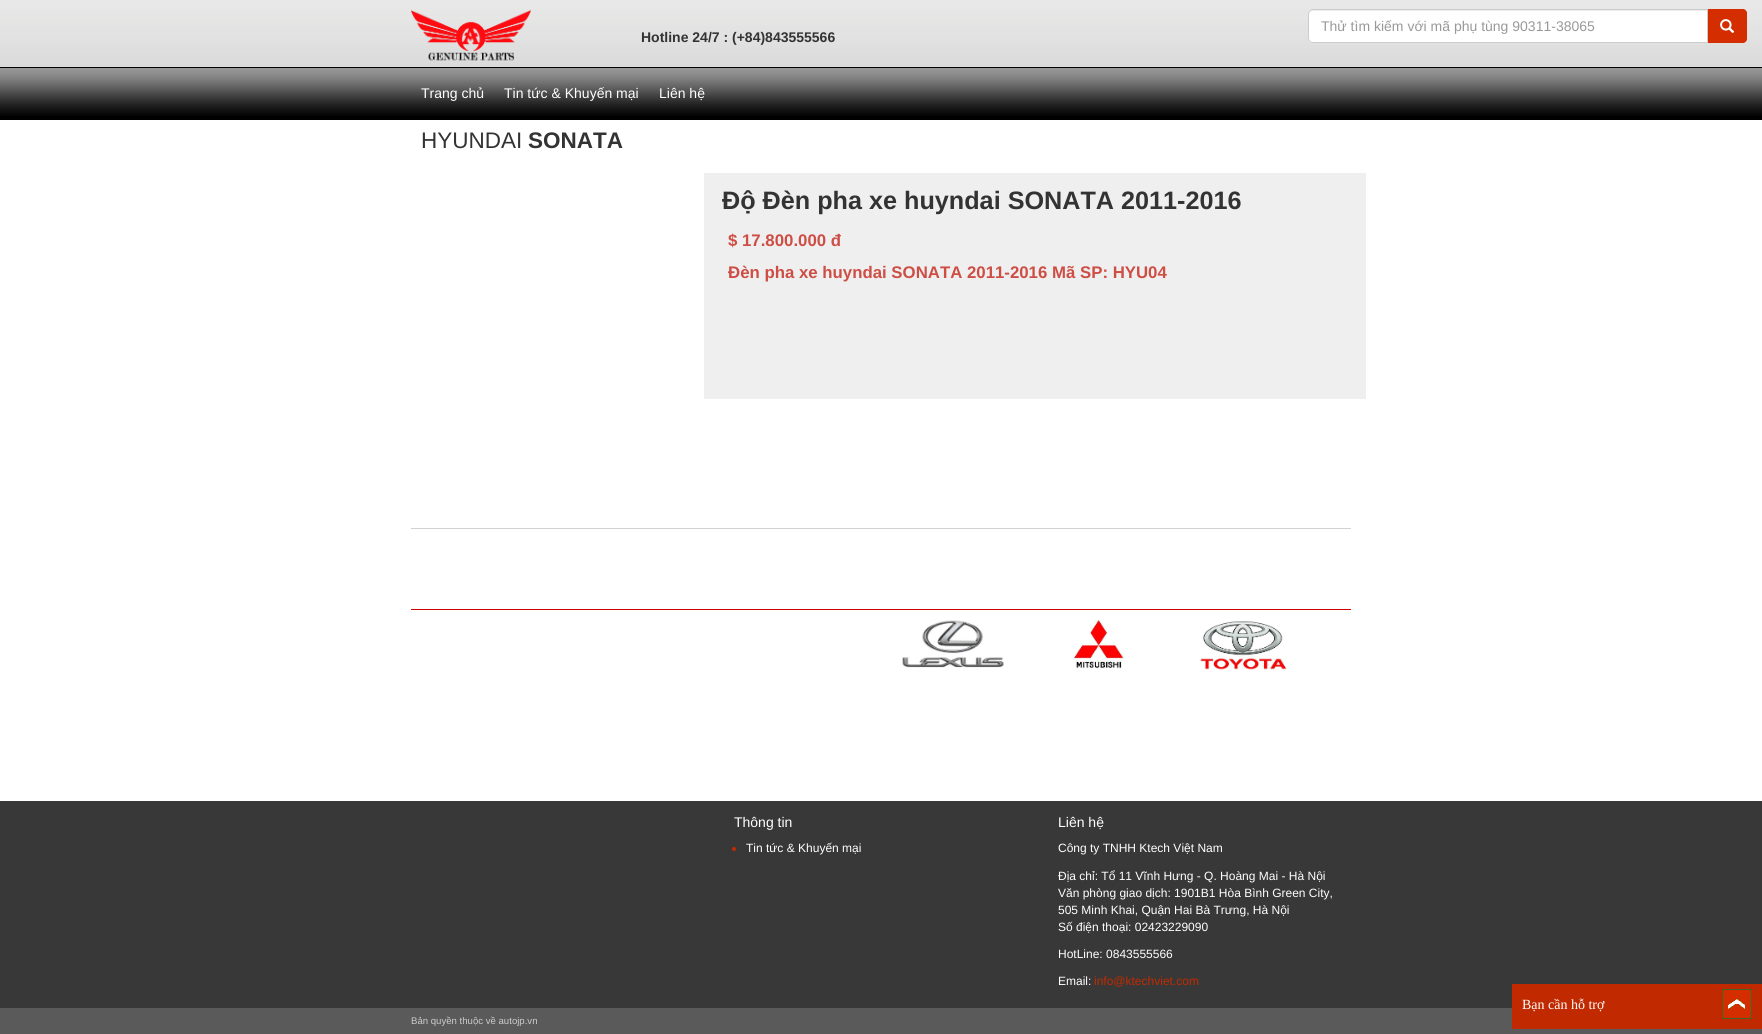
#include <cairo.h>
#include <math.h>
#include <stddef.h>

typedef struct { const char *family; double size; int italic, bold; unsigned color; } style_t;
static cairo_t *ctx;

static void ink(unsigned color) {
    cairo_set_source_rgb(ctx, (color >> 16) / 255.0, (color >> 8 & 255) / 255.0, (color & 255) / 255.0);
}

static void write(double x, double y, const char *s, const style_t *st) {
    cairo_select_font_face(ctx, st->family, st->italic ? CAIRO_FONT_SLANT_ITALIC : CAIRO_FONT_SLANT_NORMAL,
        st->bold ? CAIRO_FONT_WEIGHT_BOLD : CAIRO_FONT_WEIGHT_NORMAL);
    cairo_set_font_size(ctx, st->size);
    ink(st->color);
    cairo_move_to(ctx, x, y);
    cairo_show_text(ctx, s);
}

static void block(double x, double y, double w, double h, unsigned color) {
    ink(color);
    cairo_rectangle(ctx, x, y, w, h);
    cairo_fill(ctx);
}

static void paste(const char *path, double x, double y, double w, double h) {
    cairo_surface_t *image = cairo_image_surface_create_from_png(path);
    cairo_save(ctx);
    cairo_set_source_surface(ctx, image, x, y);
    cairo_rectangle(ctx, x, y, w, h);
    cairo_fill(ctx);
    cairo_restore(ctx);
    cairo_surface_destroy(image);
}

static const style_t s1 = {"Liberation Sans", 14, 0, 0, 0x999999};
static const style_t s2 = {"Liberation Sans", 14, 0, 1, 0x333333};
static const style_t s3 = {"Liberation Sans", 14, 0, 0, 0xffffff};
static const style_t s4 = {"Liberation Sans", 22.5, 0, 0, 0x333333};
static const style_t s5 = {"Liberation Sans", 22.5, 0, 1, 0x333333};
static const style_t s6 = {"Liberation Sans", 25.2, 0, 1, 0x333333};
static const style_t s7 = {"Liberation Sans", 16.8, 0, 1, 0xce4e45};
static const style_t s8 = {"Liberation Sans", 12, 0, 0, 0xffffff};
static const style_t s9 = {"Liberation Sans", 12, 0, 0, 0xc12a00};
static const style_t s10 = {"Liberation Sans", 9.6, 0, 0, 0xcccccc};
static const style_t s11 = {"Liberation Serif", 14, 0, 0, 0xffffff};

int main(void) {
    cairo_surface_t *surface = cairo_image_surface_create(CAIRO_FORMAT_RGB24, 1762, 1034);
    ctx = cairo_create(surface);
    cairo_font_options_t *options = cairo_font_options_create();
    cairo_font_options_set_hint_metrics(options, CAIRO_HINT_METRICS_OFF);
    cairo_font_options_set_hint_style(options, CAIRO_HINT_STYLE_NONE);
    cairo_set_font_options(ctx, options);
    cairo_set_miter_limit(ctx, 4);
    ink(0xffffff);
    cairo_paint(ctx);
    block(0, 67, 1762, 53, 0x000000);
    paste("pic1.png", 0, 0, 1762, 67);
    ink(0xffffff);
    cairo_new_path(ctx);
    cairo_move_to(ctx, 1313, 9);
    cairo_line_to(ctx, 1708, 9);
    cairo_line_to(ctx, 1708, 43);
    cairo_line_to(ctx, 1313, 43);
    cairo_curve_to(ctx, 1310, 43, 1308, 41, 1308, 38);
    cairo_line_to(ctx, 1308, 14);
    cairo_curve_to(ctx, 1308, 11, 1310, 9, 1313, 9);
    cairo_close_path(ctx);
    cairo_fill(ctx);
    ink(0xececec);
    cairo_new_path(ctx);
    cairo_move_to(ctx, 1313, 11);
    cairo_line_to(ctx, 1707, 11);
    cairo_line_to(ctx, 1707, 10);
    cairo_line_to(ctx, 1313, 10);
    cairo_curve_to(ctx, 1310, 10, 1309, 12, 1309, 15);
    cairo_curve_to(ctx, 1309, 13, 1311, 11, 1313, 11);
    cairo_close_path(ctx);
    cairo_fill(ctx);
    cairo_new_path(ctx);
    cairo_move_to(ctx, 1313, 9.5);
    cairo_line_to(ctx, 1707.5, 9.5);
    cairo_line_to(ctx, 1707.5, 42.5);
    cairo_line_to(ctx, 1313, 42.5);
    cairo_curve_to(ctx, 1310.5, 42.5, 1308.5, 40.5, 1308.5, 38);
    cairo_line_to(ctx, 1308.5, 14);
    cairo_curve_to(ctx, 1308.5, 11.5, 1310.5, 9.5, 1313, 9.5);
    cairo_close_path(ctx);
    ink(0xcccccc);
    cairo_set_line_width(ctx, 1);
    cairo_stroke(ctx);
    write(1321, 31, "Thử tìm kiếm với mã phụ tùng 90311-38065", &s1);
    ink(0xd42e00);
    cairo_new_path(ctx);
    cairo_move_to(ctx, 1708, 9);
    cairo_line_to(ctx, 1742, 9);
    cairo_curve_to(ctx, 1745, 9, 1747, 11, 1747, 14);
    cairo_line_to(ctx, 1747, 38);
    cairo_curve_to(ctx, 1747, 41, 1745, 43, 1742, 43);
    cairo_line_to(ctx, 1708, 43);
    cairo_close_path(ctx);
    cairo_fill(ctx);
    cairo_set_fill_rule(ctx, CAIRO_FILL_RULE_EVEN_ODD);
    cairo_new_path(ctx);
    cairo_move_to(ctx, 1708, 9);
    cairo_line_to(ctx, 1742, 9);
    cairo_curve_to(ctx, 1745, 9, 1747, 11, 1747, 14);
    cairo_line_to(ctx, 1747, 38);
    cairo_curve_to(ctx, 1747, 41, 1745, 43, 1742, 43);
    cairo_line_to(ctx, 1708, 43);
    cairo_close_path(ctx);
    cairo_move_to(ctx, 1708, 10);
    cairo_line_to(ctx, 1742, 10);
    cairo_curve_to(ctx, 1744, 10, 1746, 12, 1746, 14);
    cairo_line_to(ctx, 1746, 38);
    cairo_curve_to(ctx, 1746, 40, 1744, 42, 1742, 42);
    cairo_line_to(ctx, 1708, 42);
    cairo_close_path(ctx);
    cairo_fill(ctx);
    paste("pic2.png", 1720, 19, 15, 14);
    paste("pic3.png", 0, 68, 1762, 48);
    paste("pic4.png", 411, 9, 120, 52);
    write(641, 42, "Hotline 24/7 : (+84)843555566", &s2);
    write(421, 98, "Trang chủ", &s3);
    write(504, 98, "Tin tức & Khuyến mại", &s3);
    write(659, 98, "Liên hệ", &s3);
    write(421, 148, "HYUNDAI", &s4);
    write(528, 148, "SONATA", &s5);
    block(704, 173, 662, 226, 0xefefef);
    write(722, 209, "Độ Đèn pha xe huyndai SONATA 2011-2016", &s6);
    write(728, 246, "$ 17.800.000 đ", &s7);
    write(728, 278, "Đèn pha xe huyndai SONATA 2011-2016 Mã SP: HYU04", &s7);
    block(411, 528, 940, 1, 0xd2d2d2);
    block(411, 609, 940, 1, 0xcc0000);
    paste("pic5.png", 902, 620, 102, 48);
    paste("pic6.png", 1073, 619, 51, 50);
    paste("pic7.png", 1200, 621, 88, 49);
    block(0, 801, 1762, 207, 0x383838);
    write(734, 827, "Thông tin", &s3);
    ink(0xc12a00);
    cairo_new_path(ctx);
    cairo_arc(ctx, 734, 849, 2, 0, 2 * M_PI);
    cairo_fill(ctx);
    write(746, 852, "Tin tức & Khuyến mại", &s8);
    write(1058, 827, "Liên hệ", &s3);
    write(1058, 852, "Công ty TNHH Ktech Việt Nam", &s8);
    write(1058, 880, "Địa chỉ: Tổ 11 Vĩnh Hưng - Q. Hoàng Mai - Hà Nội", &s8);
    write(1058, 897, "Văn phòng giao dịch: 1901B1 Hòa Bình Green City,", &s8);
    write(1058, 914, "505 Minh Khai, Quận Hai Bà Trưng, Hà Nội", &s8);
    write(1058, 931, "Số điện thoại: 02423229090", &s8);
    write(1058, 958, "HotLine: 0843555566", &s8);
    write(1058, 985, "Email:", &s8);
    write(1094, 985, "info@ktechviet.com", &s9);
    block(0, 1008, 1762, 26, 0x5a5a5a);
    write(411, 1024, "Bản quyền thuộc về autojp.vn", &s10);
    block(1512, 984, 250, 45, 0xc12a00);
    write(1522, 1009, "Bạn cần hỗ trợ", &s11);
    paste("pic8.png", 1722, 989, 30, 30);
    cairo_surface_write_to_png(surface, "screenshot.png");
    cairo_font_options_destroy(options);
    cairo_destroy(ctx);
    cairo_surface_destroy(surface);
    return 0;
}
